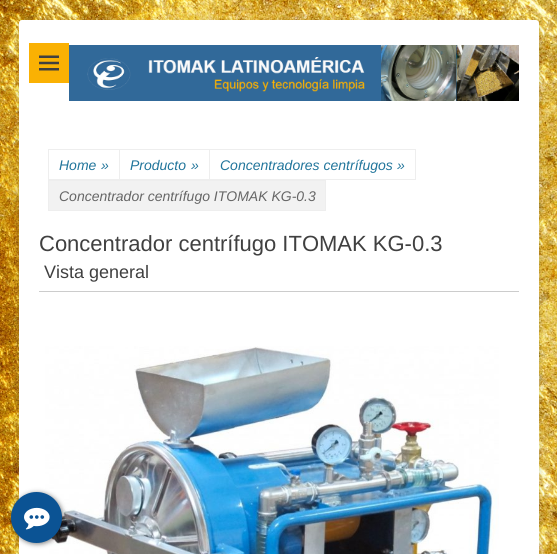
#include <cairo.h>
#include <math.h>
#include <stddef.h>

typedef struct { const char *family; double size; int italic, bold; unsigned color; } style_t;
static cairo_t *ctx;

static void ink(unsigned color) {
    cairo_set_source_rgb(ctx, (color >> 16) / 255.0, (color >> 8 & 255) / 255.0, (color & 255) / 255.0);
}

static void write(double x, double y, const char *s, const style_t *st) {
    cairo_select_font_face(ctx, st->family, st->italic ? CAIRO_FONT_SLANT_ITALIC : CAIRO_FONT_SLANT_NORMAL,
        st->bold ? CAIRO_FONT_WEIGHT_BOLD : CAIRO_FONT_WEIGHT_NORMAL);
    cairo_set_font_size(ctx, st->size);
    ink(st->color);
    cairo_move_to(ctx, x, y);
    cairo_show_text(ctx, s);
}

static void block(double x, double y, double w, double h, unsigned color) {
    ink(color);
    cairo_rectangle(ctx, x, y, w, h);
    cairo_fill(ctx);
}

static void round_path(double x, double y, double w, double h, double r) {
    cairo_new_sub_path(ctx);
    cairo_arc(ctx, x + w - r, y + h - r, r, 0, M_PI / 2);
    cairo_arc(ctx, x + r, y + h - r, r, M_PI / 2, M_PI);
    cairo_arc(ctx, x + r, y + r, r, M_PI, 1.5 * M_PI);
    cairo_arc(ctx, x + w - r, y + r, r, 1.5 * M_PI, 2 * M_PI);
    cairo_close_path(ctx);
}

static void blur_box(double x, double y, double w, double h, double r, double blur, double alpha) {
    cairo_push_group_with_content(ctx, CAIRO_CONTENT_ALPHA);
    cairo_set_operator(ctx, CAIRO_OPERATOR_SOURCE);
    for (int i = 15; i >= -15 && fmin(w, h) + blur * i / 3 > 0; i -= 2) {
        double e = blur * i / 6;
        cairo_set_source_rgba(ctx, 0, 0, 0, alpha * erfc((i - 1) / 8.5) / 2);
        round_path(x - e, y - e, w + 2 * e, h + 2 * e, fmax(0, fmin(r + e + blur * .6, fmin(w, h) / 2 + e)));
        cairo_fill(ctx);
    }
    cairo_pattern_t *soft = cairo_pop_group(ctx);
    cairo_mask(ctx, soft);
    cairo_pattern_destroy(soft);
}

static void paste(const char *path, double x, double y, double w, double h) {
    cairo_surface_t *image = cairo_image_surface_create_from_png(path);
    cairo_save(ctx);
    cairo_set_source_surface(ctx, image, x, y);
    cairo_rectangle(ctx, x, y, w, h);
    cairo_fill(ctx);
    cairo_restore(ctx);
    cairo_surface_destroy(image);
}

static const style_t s1 = {"Liberation Sans", 14, 1, 0, 0x21759b};
static const style_t s2 = {"Liberation Sans", 14, 1, 0, 0x666666};
static const style_t s3 = {"Liberation Sans", 22, 0, 0, 0x404040};
static const style_t s4 = {"Liberation Sans", 18, 0, 0, 0x404040};

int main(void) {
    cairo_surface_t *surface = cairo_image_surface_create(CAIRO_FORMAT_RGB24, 557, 554);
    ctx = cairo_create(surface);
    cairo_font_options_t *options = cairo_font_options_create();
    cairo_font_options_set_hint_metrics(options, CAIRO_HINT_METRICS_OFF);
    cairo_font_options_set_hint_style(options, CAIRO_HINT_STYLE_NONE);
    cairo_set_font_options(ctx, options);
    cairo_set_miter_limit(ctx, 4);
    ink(0xffffff);
    cairo_paint(ctx);
    paste("pic1.png", 0, 0, 557, 554);
    ink(0x646464);
    blur_box(19, 22, 520, 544, 3, 3, 0.3);
    ink(0xffffff);
    round_path(19, 20, 520, 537, 3);
    cairo_fill(ctx);
    block(29, 43, 40, 40, 0xfab103);
    paste("pic2.png", 39, 55, 20, 16);
    paste("pic3.png", 69, 45, 450, 56);
    cairo_rectangle(ctx, 48.5, 149.5, 71, 30);
    ink(0xeeeeee);
    cairo_set_line_width(ctx, 1);
    cairo_stroke(ctx);
    write(59, 170, "Home", &s1);
    write(101, 170, "»", &s1);
    cairo_rectangle(ctx, 119.5, 149.5, 90, 30);
    ink(0xeeeeee);
    cairo_stroke(ctx);
    write(130, 170, "Producto", &s1);
    write(191, 170, "»", &s1);
    cairo_rectangle(ctx, 209.5, 149.5, 206, 30);
    ink(0xeeeeee);
    cairo_stroke(ctx);
    write(220, 170, "Concentradores centrífugos", &s1);
    write(397, 170, "»", &s1);
    ink(0xf2f2f2);
    cairo_rectangle(ctx, 48.5, 180.5, 277, 30);
    cairo_fill_preserve(ctx);
    ink(0xeeeeee);
    cairo_stroke(ctx);
    write(59, 201, "Concentrador centrífugo ITOMAK KG-0.3", &s2);
    write(39, 251, "Concentrador centrífugo ITOMAK KG-0.3", &s3);
    write(44, 278, "Vista general", &s4);
    block(39, 291, 480, 1, 0xcccccc);
    paste("pic4.png", 45, 346, 454, 208);
    ink(0x000000);
    blur_box(12, 493, 51, 51, 25.5, 2.5, 0.5);
    ink(0x0b5394);
    cairo_arc(ctx, 36.5, 517.5, 25.5, 0, 2 * M_PI);
    cairo_fill(ctx);
    paste("pic5.png", 24, 507, 26, 23);
    cairo_surface_write_to_png(surface, "screenshot.png");
    cairo_font_options_destroy(options);
    cairo_destroy(ctx);
    cairo_surface_destroy(surface);
    return 0;
}
